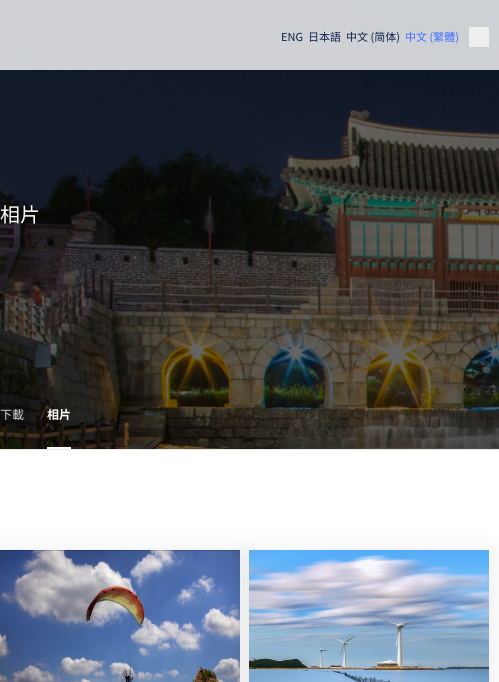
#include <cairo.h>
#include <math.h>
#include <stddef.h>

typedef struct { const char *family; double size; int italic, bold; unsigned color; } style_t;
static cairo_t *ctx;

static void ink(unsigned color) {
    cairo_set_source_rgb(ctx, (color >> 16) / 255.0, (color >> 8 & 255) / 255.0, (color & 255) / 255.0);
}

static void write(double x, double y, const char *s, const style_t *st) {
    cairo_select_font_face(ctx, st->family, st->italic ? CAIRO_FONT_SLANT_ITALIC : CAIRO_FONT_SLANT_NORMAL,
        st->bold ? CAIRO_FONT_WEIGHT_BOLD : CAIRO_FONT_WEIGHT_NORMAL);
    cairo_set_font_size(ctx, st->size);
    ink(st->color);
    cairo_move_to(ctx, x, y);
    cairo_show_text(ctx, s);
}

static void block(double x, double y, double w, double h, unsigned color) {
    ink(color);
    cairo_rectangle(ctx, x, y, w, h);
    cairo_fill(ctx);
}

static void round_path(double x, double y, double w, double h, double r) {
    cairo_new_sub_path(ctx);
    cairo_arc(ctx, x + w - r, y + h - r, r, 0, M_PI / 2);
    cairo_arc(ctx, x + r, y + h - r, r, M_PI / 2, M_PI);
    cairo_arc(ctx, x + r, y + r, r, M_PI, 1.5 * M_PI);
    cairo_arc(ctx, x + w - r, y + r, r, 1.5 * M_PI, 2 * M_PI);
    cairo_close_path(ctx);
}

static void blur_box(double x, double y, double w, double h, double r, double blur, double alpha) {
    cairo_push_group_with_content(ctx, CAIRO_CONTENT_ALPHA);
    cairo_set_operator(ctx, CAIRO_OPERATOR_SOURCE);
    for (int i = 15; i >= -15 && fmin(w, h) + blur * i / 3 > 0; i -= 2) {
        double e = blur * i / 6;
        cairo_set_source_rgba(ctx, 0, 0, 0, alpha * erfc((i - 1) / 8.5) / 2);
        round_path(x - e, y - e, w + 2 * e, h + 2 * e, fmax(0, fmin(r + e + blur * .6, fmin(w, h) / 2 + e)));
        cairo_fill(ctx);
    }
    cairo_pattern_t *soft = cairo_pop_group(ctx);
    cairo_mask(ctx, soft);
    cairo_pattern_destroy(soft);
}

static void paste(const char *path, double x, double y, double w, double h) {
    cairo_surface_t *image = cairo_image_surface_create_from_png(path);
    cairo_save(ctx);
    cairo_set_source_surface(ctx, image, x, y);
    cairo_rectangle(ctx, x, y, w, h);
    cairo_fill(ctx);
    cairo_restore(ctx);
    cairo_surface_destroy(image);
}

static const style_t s1 = {"Noto Sans SC", 11, 0, 0, 0x0c254b};
static const style_t s2 = {"Noto Sans SC", 11, 0, 0, 0x406eff};
static const style_t s3 = {"Noto Sans SC", 20, 0, 0, 0xffffff};
static const style_t s4 = {"Noto Sans SC", 12, 0, 0, 0xd6d6d6};
static const style_t s5 = {"Noto Sans SC", 12, 0, 1, 0xffffff};

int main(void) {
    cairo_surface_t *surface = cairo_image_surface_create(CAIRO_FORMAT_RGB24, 499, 682);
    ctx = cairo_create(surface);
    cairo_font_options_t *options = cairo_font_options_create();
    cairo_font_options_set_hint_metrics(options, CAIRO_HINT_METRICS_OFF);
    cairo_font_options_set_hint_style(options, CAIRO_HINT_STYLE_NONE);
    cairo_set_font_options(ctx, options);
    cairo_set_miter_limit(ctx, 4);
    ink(0xffffff);
    cairo_paint(ctx);
    paste("pic1.png", 0, 0, 499, 449);
    cairo_set_source_rgba(ctx, 1, 1, 1, 0.8);
    cairo_rectangle(ctx, 0, 0, 499, 70);
    cairo_fill(ctx);
    write(281, 41, "ENG", &s1);
    write(308, 41, "日本語", &s1);
    write(346, 41, "中文 (简体)", &s1);
    write(405, 41, "中文 (繁體)", &s2);
    block(469, 27, 20, 20, 0xefefef);
    block(0, 449, 499, 1, 0xe6e8ea);
    write(0, 222, "相片", &s3);
    write(0, 419, "下載", &s4);
    block(47, 447, 24, 2, 0xffffff);
    write(47, 419, "相片", &s5);
    ink(0x000000);
    blur_box(0, 554, 240, 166, 0, 12.5, 0.1);
    paste("pic2.png", 0, 550, 240, 132);
    blur_box(249, 554, 240, 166, 0, 12.5, 0.1);
    paste("pic3.png", 249, 550, 240, 132);
    cairo_surface_write_to_png(surface, "screenshot.png");
    cairo_font_options_destroy(options);
    cairo_destroy(ctx);
    cairo_surface_destroy(surface);
    return 0;
}
